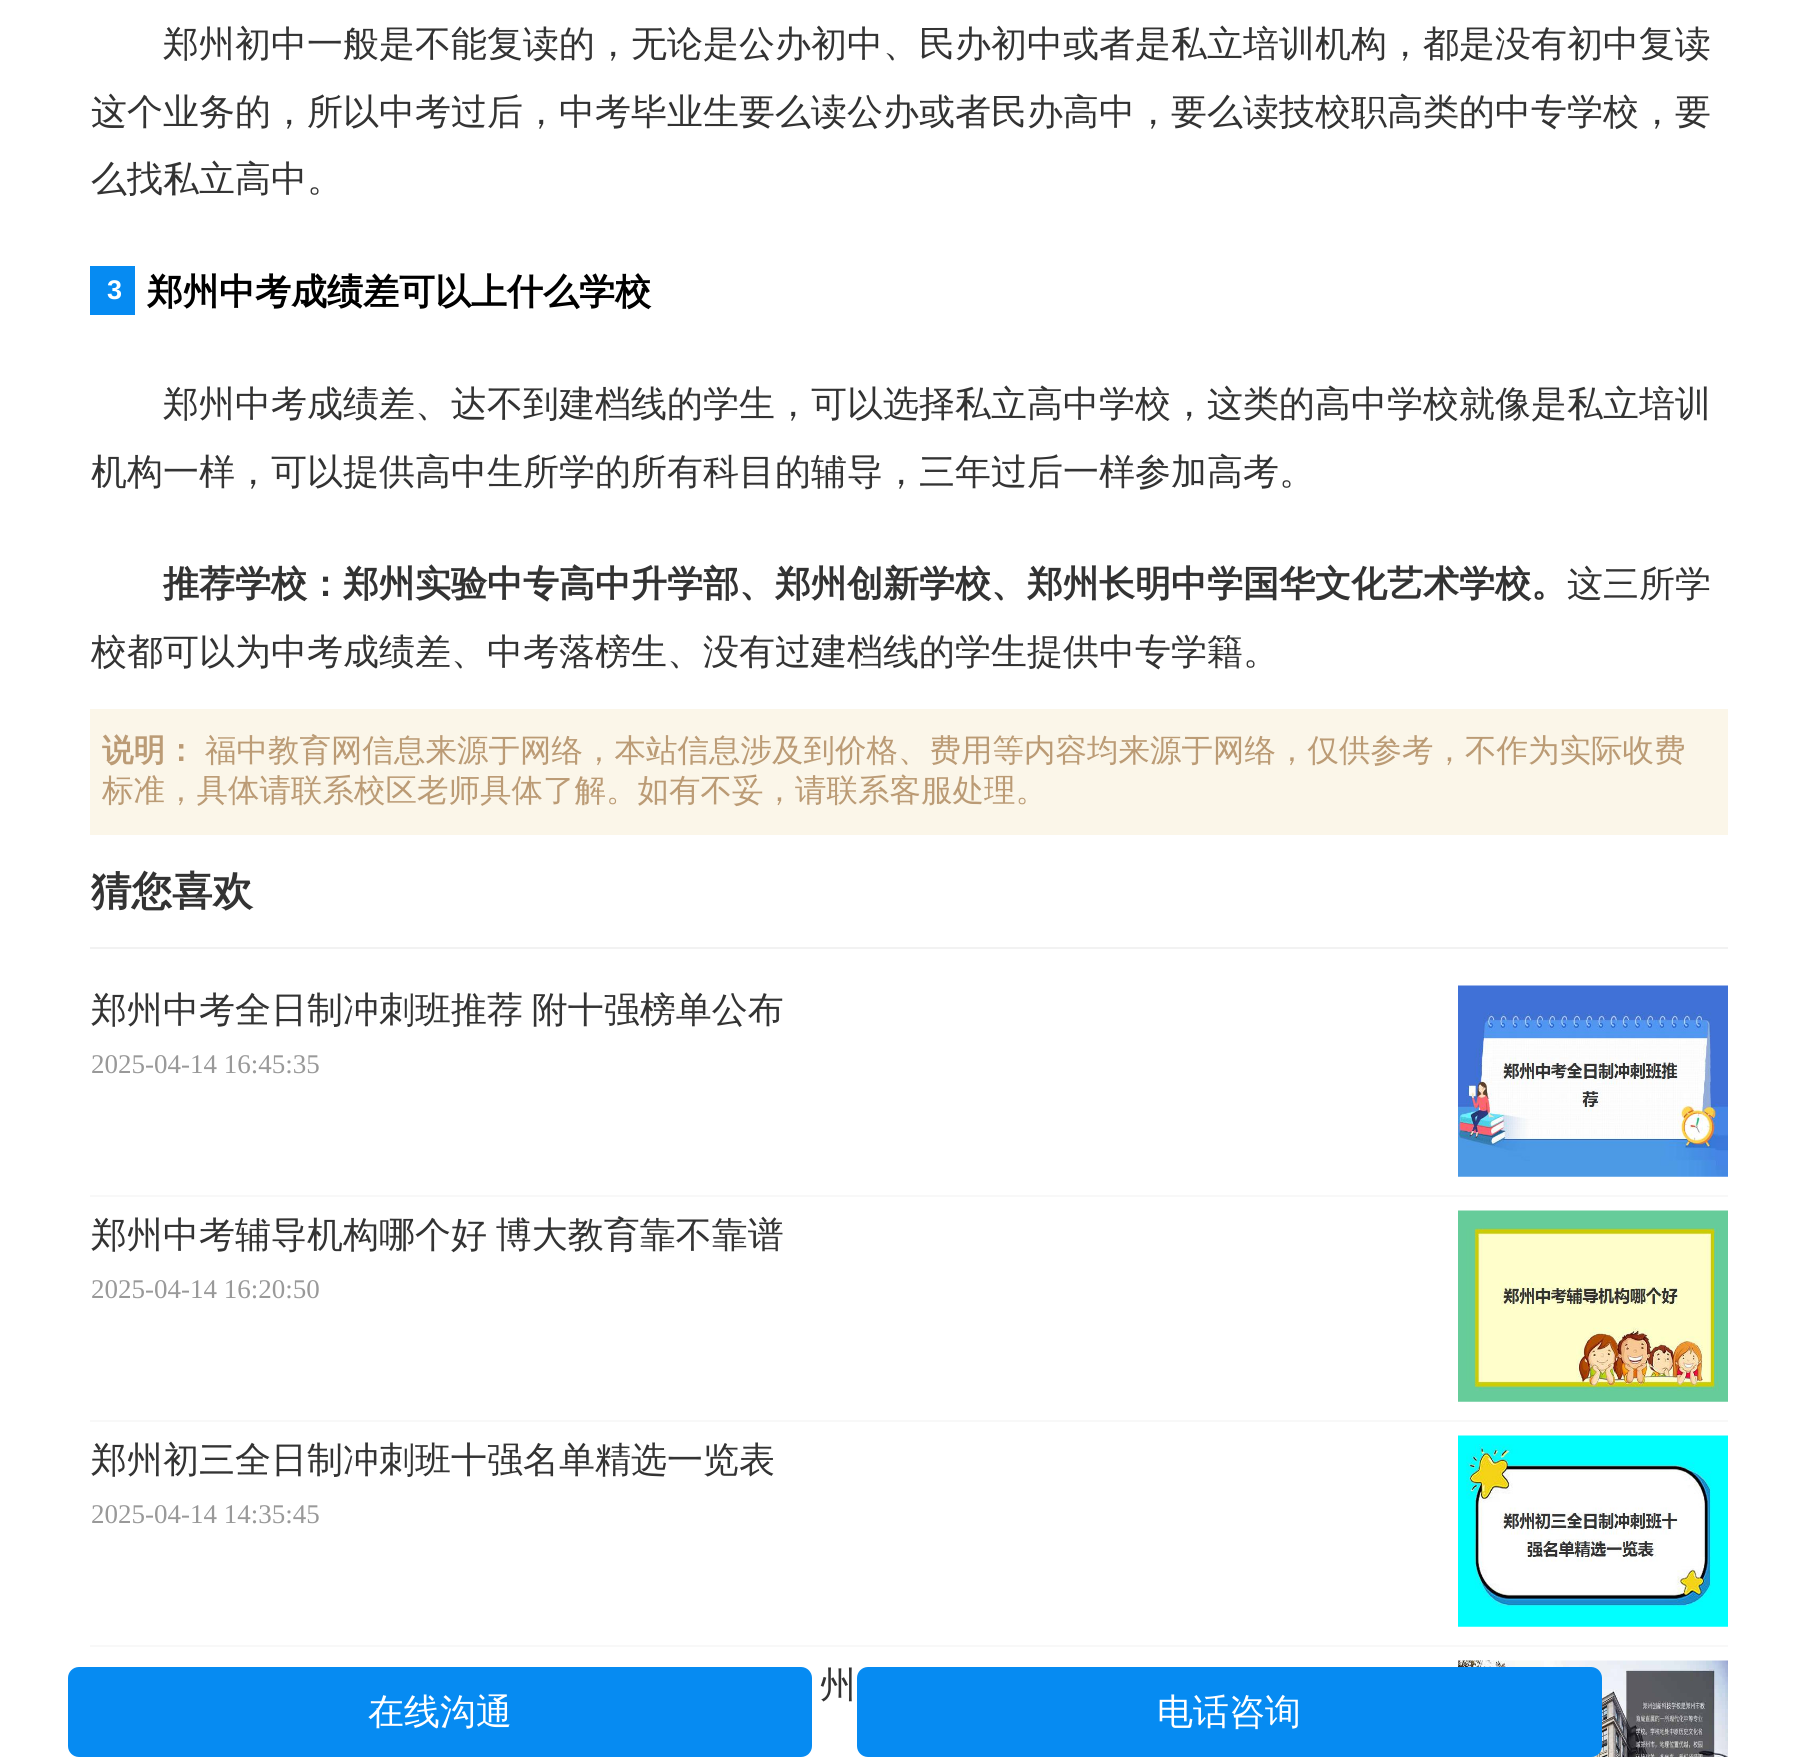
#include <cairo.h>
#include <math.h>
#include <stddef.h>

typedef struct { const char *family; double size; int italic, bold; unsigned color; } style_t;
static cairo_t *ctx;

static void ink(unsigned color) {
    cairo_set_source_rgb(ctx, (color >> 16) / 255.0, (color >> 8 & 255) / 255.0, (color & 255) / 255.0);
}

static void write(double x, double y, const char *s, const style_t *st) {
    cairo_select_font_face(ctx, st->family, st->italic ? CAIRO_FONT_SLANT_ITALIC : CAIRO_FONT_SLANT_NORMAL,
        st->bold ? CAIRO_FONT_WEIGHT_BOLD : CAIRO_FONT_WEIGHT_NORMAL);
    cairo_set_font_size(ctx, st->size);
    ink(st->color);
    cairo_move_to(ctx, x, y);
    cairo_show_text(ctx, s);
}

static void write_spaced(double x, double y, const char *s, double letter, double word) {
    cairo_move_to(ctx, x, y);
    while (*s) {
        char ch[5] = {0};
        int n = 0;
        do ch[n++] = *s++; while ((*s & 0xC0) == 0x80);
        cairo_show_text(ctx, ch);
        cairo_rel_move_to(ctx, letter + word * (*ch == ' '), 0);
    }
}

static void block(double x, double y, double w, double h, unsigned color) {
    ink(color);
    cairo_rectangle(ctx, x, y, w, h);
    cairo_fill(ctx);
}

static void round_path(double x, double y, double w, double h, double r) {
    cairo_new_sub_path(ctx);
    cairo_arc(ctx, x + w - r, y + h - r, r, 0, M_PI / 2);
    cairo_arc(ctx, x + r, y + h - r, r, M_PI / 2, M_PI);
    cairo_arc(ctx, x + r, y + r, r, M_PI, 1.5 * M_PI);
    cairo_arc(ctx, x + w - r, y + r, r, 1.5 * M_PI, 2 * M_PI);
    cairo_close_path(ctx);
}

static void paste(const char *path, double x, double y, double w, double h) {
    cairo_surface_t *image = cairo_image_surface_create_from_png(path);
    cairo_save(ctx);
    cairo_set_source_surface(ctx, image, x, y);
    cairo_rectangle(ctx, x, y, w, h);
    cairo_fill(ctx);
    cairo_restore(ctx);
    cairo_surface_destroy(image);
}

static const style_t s1 = {"WenQuanYi Zen Hei Medium", 36, 0, 0, 0x333333};
static const style_t s2 = {"Liberation Sans", 27, 0, 1, 0xffffff};
static const style_t s3 = {"WenQuanYi Zen Hei", 36, 0, 1, 0x000000};
static const style_t s4 = {"WenQuanYi Zen Hei", 36, 0, 1, 0x333333};
static const style_t s5 = {"WenQuanYi Zen Hei", 31.5, 0, 1, 0xbb9b75};
static const style_t s6 = {"WenQuanYi Zen Hei Medium", 31.5, 0, 0, 0xbb9b75};
static const style_t s7 = {"WenQuanYi Zen Hei", 40.5, 0, 1, 0x333333};
static const style_t s8 = {"Liberation Serif", 27, 0, 0, 0x999999};
static const style_t s9 = {"WenQuanYi Zen Hei Medium", 36, 0, 0, 0xffffff};

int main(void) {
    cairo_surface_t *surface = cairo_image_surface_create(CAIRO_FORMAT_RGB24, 1817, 1757);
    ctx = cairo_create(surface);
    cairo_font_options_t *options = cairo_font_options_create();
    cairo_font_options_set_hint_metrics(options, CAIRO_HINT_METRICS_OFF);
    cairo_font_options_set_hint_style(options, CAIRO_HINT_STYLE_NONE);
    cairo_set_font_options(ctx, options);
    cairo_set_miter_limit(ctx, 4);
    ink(0xffffff);
    cairo_paint(ctx);
    write(163, 56, "郑州初中一般是不能复读的，无论是公办初中、民办初中或者是私立培训机构，都是没有初中复读", &s1);
    write(91, 124, "这个业务的，所以中考过后，中考毕业生要么读公办或者民办高中，要么读技校职高类的中专学校，要", &s1);
    write(91, 191, "么找私立高中。", &s1);
    block(90, 266, 45, 49, 0x068bf2);
    write(107, 299, "3", &s2);
    write(147, 304, "郑州中考成绩差可以上什么学校", &s3);
    write(163, 416, "郑州中考成绩差、达不到建档线的学生，可以选择私立高中学校，这类的高中学校就像是私立培训", &s1);
    write(91, 484, "机构一样，可以提供高中生所学的所有科目的辅导，三年过后一样参加高考。", &s1);
    write(163, 596, "推荐学校：郑州实验中专高中升学部、郑州创新学校、郑州长明中学国华文化艺术学校。", &s4);
    write(1567, 596, "这三所学", &s1);
    write(91, 664, "校都可以为中考成绩差、中考落榜生、没有过建档线的学生提供中专学籍。", &s1);
    block(90, 709, 1638, 126, 0xfbf6e9);
    write(102, 761, "说明：", &s5);
    write(205, 761, "福中教育网信息来源于网络，本站信息涉及到价格、费用等内容均来源于网络，仅供参考，不作为实际收费", &s6);
    write(102, 801, "标准，具体请联系校区老师具体了解。如有不妥，请联系客服处理。", &s6);
    block(90, 947, 1638, 2, 0xf2f2f2);
    write(91, 905, "猜您喜欢", &s7);
    block(90, 1195, 1638, 2, 0xf8f8f8);
    cairo_select_font_face(ctx, "WenQuanYi Zen Hei Medium", CAIRO_FONT_SLANT_NORMAL, CAIRO_FONT_WEIGHT_NORMAL);
    cairo_set_font_size(ctx, 36);
    ink(0x333333);
    write_spaced(91, 1022, "郑州中考全日制冲刺班推荐 附十强榜单公布", 0, -2);
    paste("pic1.png", 1458, 985, 270, 192);
    write(91, 1073, "2025-04-14 16:45:35", &s8);
    block(90, 1420, 1638, 2, 0xf8f8f8);
    cairo_select_font_face(ctx, "WenQuanYi Zen Hei Medium", CAIRO_FONT_SLANT_NORMAL, CAIRO_FONT_WEIGHT_NORMAL);
    cairo_set_font_size(ctx, 36);
    ink(0x333333);
    write_spaced(91, 1247, "郑州中考辅导机构哪个好 博大教育靠不靠谱", 0, -2);
    paste("pic2.png", 1458, 1210, 270, 192);
    write(91, 1298, "2025-04-14 16:20:50", &s8);
    block(90, 1645, 1638, 2, 0xf8f8f8);
    write(91, 1472, "郑州初三全日制冲刺班十强名单精选一览表", &s1);
    paste("pic3.png", 1458, 1435, 270, 192);
    write(91, 1523, "2025-04-14 14:35:45", &s8);
    cairo_select_font_face(ctx, "WenQuanYi Zen Hei Medium", CAIRO_FONT_SLANT_NORMAL, CAIRO_FONT_WEIGHT_NORMAL);
    cairo_set_font_size(ctx, 36);
    ink(0x333333);
    write_spaced(820, 1697, "州", 0, -2);
    paste("pic4.png", 1458, 1660, 270, 97);
    ink(0x068bf2);
    round_path(68, 1667, 744, 90, 11);
    cairo_fill(ctx);
    write(368, 1724, "在线沟通", &s9);
    ink(0x068bf2);
    round_path(857, 1667, 745, 90, 11);
    cairo_fill(ctx);
    write(1157, 1724, "电话咨询", &s9);
    cairo_surface_write_to_png(surface, "screenshot.png");
    cairo_font_options_destroy(options);
    cairo_destroy(ctx);
    cairo_surface_destroy(surface);
    return 0;
}
